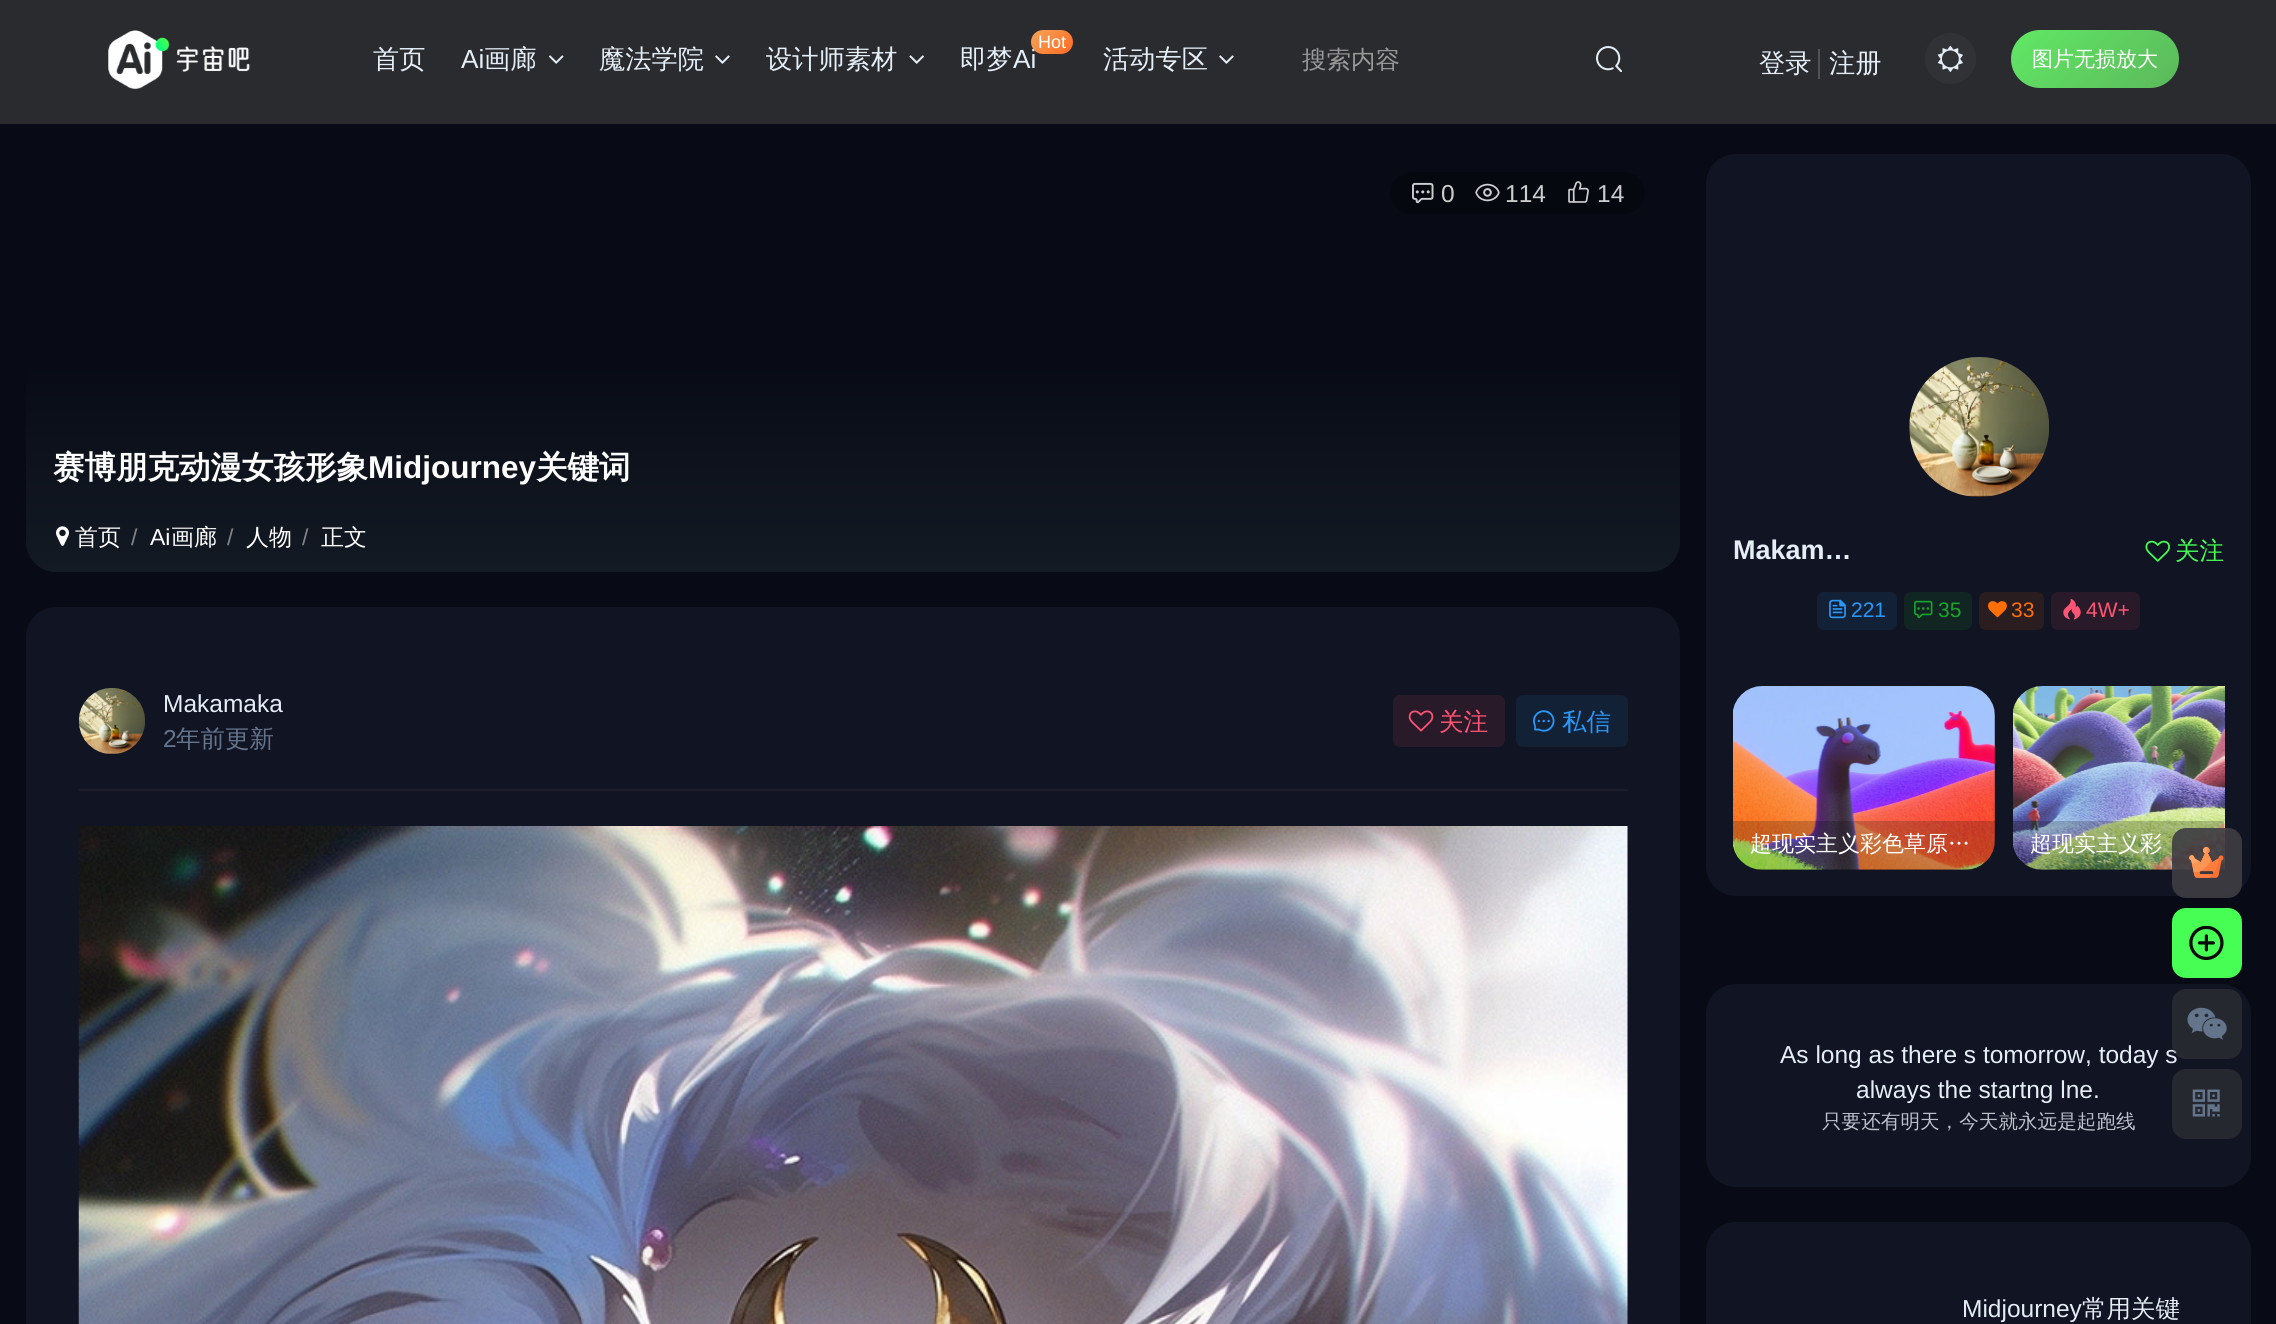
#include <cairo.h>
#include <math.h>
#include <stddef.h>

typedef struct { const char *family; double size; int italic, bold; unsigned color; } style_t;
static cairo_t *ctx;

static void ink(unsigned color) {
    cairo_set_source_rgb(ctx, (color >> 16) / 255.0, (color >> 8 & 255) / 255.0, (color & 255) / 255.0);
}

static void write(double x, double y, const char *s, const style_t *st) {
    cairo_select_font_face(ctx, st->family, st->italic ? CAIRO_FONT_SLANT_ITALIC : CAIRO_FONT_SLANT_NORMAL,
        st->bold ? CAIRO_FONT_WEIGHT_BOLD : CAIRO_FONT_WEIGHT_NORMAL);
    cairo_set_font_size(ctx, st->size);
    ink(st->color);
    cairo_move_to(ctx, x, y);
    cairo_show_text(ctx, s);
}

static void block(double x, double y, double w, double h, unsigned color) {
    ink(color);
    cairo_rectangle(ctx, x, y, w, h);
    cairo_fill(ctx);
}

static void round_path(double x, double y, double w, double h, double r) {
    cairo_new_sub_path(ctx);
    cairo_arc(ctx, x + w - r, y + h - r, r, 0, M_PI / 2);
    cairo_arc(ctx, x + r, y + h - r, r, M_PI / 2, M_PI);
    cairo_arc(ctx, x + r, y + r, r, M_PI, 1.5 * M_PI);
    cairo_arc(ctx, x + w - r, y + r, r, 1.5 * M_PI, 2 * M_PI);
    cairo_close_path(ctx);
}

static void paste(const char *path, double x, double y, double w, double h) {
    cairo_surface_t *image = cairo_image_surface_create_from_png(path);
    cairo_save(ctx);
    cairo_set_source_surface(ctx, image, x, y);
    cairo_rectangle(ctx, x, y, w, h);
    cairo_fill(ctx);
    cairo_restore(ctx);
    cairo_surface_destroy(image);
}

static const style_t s1 = {"WenQuanYi Zen Hei Medium", 26.25, 0, 0, 0xe5eef7};
static const style_t s2 = {"Liberation Sans", 26.25, 0, 0, 0xe5eef7};
static const style_t s3 = {"Liberation Sans", 18, 0, 0, 0xffffff};
static const style_t s4 = {"WenQuanYi Zen Hei Medium", 24.5, 0, 0, 0x999999};
static const style_t s5 = {"WenQuanYi Zen Hei Medium", 21, 0, 0, 0xffffff};
static const style_t s6 = {"Liberation Sans", 24.5, 0, 0, 0xcdcecf};
static const style_t s7 = {"WenQuanYi Zen Hei", 31.5, 0, 1, 0xffffff};
static const style_t s8 = {"Liberation Sans", 31.5, 0, 1, 0xffffff};
static const style_t s9 = {"WenQuanYi Zen Hei Medium", 23, 0, 0, 0xffffff};
static const style_t s10 = {"Liberation Sans", 23, 0, 0, 0x818488};
static const style_t s11 = {"Liberation Sans", 23, 0, 0, 0xffffff};
static const style_t s12 = {"Liberation Sans", 24.5, 0, 0, 0xe5eef7};
static const style_t s13 = {"Liberation Sans", 24.5, 0, 0, 0x64748b};
static const style_t s14 = {"WenQuanYi Zen Hei Medium", 24.5, 0, 0, 0x64748b};
static const style_t s15 = {"WenQuanYi Zen Hei Medium", 24.5, 0, 0, 0xff5473};
static const style_t s16 = {"WenQuanYi Zen Hei Medium", 24.5, 0, 0, 0x2997f7};
static const style_t s17 = {"Liberation Sans", 27, 0, 1, 0xe5eef7};
static const style_t s18 = {"WenQuanYi Zen Hei Medium", 24.5, 0, 0, 0x47fe55};
static const style_t s19 = {"Liberation Sans", 21, 0, 0, 0x2997f7};
static const style_t s20 = {"Liberation Sans", 21, 0, 0, 0x18a52a};
static const style_t s21 = {"Liberation Sans", 21, 0, 0, 0xff6f06};
static const style_t s22 = {"Liberation Sans", 21, 0, 0, 0xff5473};
static const style_t s23 = {"WenQuanYi Zen Hei Medium", 22, 0, 0, 0xffffff};
static const style_t s24 = {"WenQuanYi Zen Hei Medium", 19.6, 0, 0, 0xbbc2cc};
static const style_t s25 = {"WenQuanYi Zen Hei Medium", 24.5, 0, 0, 0xe5eef7};

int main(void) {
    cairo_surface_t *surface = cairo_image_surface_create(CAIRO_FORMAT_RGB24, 2276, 1324);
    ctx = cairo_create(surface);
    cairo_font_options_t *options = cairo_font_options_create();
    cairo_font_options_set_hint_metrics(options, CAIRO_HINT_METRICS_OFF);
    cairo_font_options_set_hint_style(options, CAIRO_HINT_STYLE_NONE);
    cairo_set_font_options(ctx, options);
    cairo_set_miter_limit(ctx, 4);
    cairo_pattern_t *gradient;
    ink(0x080b16);
    cairo_paint(ctx);
    block(0, 0, 2276, 124, 0x2a2b2f);
    paste("pic1.png", 108, 30, 142, 59);
    write(373, 68, "首页", &s1);
    write(461, 68, "Ai", &s2);
    write(484, 68, "画廊", &s1);
    paste("pic2.png", 548, 55, 16, 9);
    write(599, 68, "魔法学院", &s1);
    paste("pic3.png", 715, 55, 15, 9);
    write(766, 68, "设计师素材", &s1);
    paste("pic4.png", 909, 55, 15, 9);
    write(1013, 68, "Ai", &s2);
    gradient = cairo_pattern_create_linear(1035, 25, 1069, 59);
    cairo_pattern_add_color_stop_rgba(gradient, 0.1, 0.961, 0.624, 0.329, 1);
    cairo_pattern_add_color_stop_rgba(gradient, 1, 1, 0.412, 0.133, 1);
    cairo_set_source(ctx, gradient);
    cairo_pattern_destroy(gradient);
    round_path(1031, 30, 42, 24, 12);
    cairo_fill(ctx);
    write(1038, 48, "Hot", &s3);
    write(960, 68, "即梦", &s1);
    write(1103, 68, "活动专区", &s1);
    paste("pic3.png", 1219, 55, 15, 9);
    write(1302, 68, "搜索内容", &s4);
    paste("pic5.png", 1596, 46, 26, 26);
    write(1759, 72, "登录", &s1);
    block(1818, 49, 2, 30, 0x4f5257);
    write(1829, 72, "注册", &s1);
    ink(0x313236);
    cairo_new_path(ctx);
    cairo_arc(ctx, 1950.5, 58.5, 25.5, 0, 2 * M_PI);
    cairo_fill(ctx);
    paste("pic6.png", 1937, 45, 26, 27);
    gradient = cairo_pattern_create_linear(2038, 2.2, 2151, 115);
    cairo_pattern_add_color_stop_rgba(gradient, 0.1, 0.376, 0.894, 0.392, 1);
    cairo_pattern_add_color_stop_rgba(gradient, 1, 0.361, 0.722, 0.357, 1);
    cairo_set_source(ctx, gradient);
    cairo_pattern_destroy(gradient);
    round_path(2011, 30, 168, 58, 29);
    cairo_fill(ctx);
    write(2032, 66, "图片无损放大", &s5);
    ink(0x06080f);
    round_path(1390, 172, 255, 42, 21);
    cairo_fill(ctx);
    paste("pic7.png", 1412, 182, 22, 22);
    write(1441, 202, "0", &s6);
    paste("pic8.png", 1475, 183, 25, 19);
    write(1505, 202, "114", &s6);
    paste("pic9.png", 1568, 181, 21, 22);
    write(1597, 202, "14", &s6);
    gradient = cairo_pattern_create_linear(853, 572, 853, 362);
    cairo_pattern_add_color_stop_rgba(gradient, 0, 0.075, 0.102, 0.141, 1);
    cairo_pattern_add_color_stop_rgba(gradient, 1, 0.031, 0.043, 0.086, 1);
    cairo_set_source(ctx, gradient);
    cairo_pattern_destroy(gradient);
    cairo_new_path(ctx);
    cairo_move_to(ctx, 26, 362);
    cairo_line_to(ctx, 1680, 362);
    cairo_line_to(ctx, 1680, 542);
    cairo_curve_to(ctx, 1680, 558.5, 1666.5, 572, 1650, 572);
    cairo_line_to(ctx, 56, 572);
    cairo_curve_to(ctx, 39.5, 572, 26, 558.5, 26, 542);
    cairo_close_path(ctx);
    cairo_fill(ctx);
    write(53, 478, "赛博朋克动漫女孩形象", &s7);
    write(368, 478, "Midjourney", &s8);
    write(536, 478, "关键词", &s7);
    paste("pic10.png", 56, 526, 13, 20);
    write(75, 545, "首页", &s9);
    write(131, 545, "/", &s10);
    write(150, 545, "Ai", &s11);
    write(171, 545, "画廊", &s9);
    write(227, 545, "/", &s10);
    write(246, 545, "人物", &s9);
    write(302, 545, "/", &s10);
    write(321, 545, "正文", &s9);
    ink(0x111422);
    round_path(26, 607, 1654, 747, 30);
    cairo_fill(ctx);
    paste("pic11.png", 78, 687, 67, 67);
    write(163, 712, "Makamaka", &s12);
    write(163, 747, "2", &s13);
    write(176, 747, "年前更新", &s14);
    ink(0x291a2a);
    round_path(1393, 695, 112, 52, 7);
    cairo_fill(ctx);
    paste("pic12.png", 1408, 710, 26, 22);
    write(1439, 730, "关注", &s15);
    ink(0x132137);
    round_path(1516, 695, 112, 52, 7);
    cairo_fill(ctx);
    paste("pic13.png", 1533, 710, 22, 22);
    write(1562, 730, "私信", &s16);
    block(79, 789, 1549, 2, 0x1b1d2a);
    paste("pic14.png", 78, 826, 1550, 498);
    ink(0x111422);
    round_path(1706, 154, 545, 742, 30);
    cairo_fill(ctx);
    paste("pic15.png", 1909, 357, 140, 140);
    write(1733, 559, "Makam…", &s17);
    paste("pic16.png", 2145, 540, 25, 22);
    write(2175, 559, "关注", &s18);
    ink(0x132137);
    round_path(1817, 592, 80, 38, 7);
    cairo_fill(ctx);
    paste("pic17.png", 1829, 599, 17, 20);
    write(1851, 617, "221", &s19);
    ink(0x112523);
    round_path(1904, 592, 68, 38, 7);
    cairo_fill(ctx);
    paste("pic18.png", 1914, 600, 19, 19);
    write(1938, 617, "35", &s20);
    ink(0x291d1f);
    round_path(1979, 592, 65, 38, 7);
    cairo_fill(ctx);
    paste("pic19.png", 1988, 601, 19, 17);
    write(2011, 617, "33", &s21);
    ink(0x291a2a);
    round_path(2051, 592, 89, 38, 7);
    cairo_fill(ctx);
    paste("pic20.png", 2063, 599, 18, 21);
    write(2086, 617, "4W+", &s22);
    paste("pic21.png", 1733, 686, 262, 184);
    cairo_set_source_rgba(ctx, 0, 0, 0, 0.2);
    cairo_new_path(ctx);
    cairo_move_to(ctx, 1733, 821);
    cairo_line_to(ctx, 1995, 821);
    cairo_line_to(ctx, 1995, 840);
    cairo_curve_to(ctx, 1995, 856.5, 1981.5, 870, 1965, 870);
    cairo_line_to(ctx, 1763, 870);
    cairo_curve_to(ctx, 1746.5, 870, 1733, 856.5, 1733, 840);
    cairo_close_path(ctx);
    cairo_fill(ctx);
    write(1750, 851, "超现实主义彩色草原…", &s23);
    paste("pic22.png", 2013, 686, 212, 184);
    cairo_set_source_rgba(ctx, 0, 0, 0, 0.2);
    cairo_new_path(ctx);
    cairo_move_to(ctx, 2013, 821);
    cairo_line_to(ctx, 2224, 821);
    cairo_line_to(ctx, 2224, 870);
    cairo_line_to(ctx, 2043, 870);
    cairo_curve_to(ctx, 2026.5, 870, 2013, 856.5, 2013, 840);
    cairo_close_path(ctx);
    cairo_fill(ctx);
    write(2030, 851, "超现实主义彩", &s23);
    ink(0x111422);
    round_path(1706, 984, 545, 203, 30);
    cairo_fill(ctx);
    write(1780, 1063, "As long as there s tomorrow, today s", &s12);
    write(1856, 1098, "always the startng lne.", &s12);
    write(1822, 1128, "只要还有明天，今天就永远是起跑线", &s24);
    ink(0x111422);
    round_path(1706, 1222, 545, 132, 30);
    cairo_fill(ctx);
    write(1962, 1317, "Midjourney", &s12);
    write(2082, 1317, "常用关键", &s25);
    cairo_set_source_rgba(ctx, 0.243, 0.243, 0.263, 0.9);
    round_path(2172, 828, 70, 70, 14);
    cairo_fill(ctx);
    paste("pic23.png", 2189, 847, 35, 31);
    ink(0x47fe55);
    round_path(2172, 908, 70, 70, 14);
    cairo_fill(ctx);
    paste("pic24.png", 2189, 926, 35, 34);
    cairo_set_source_rgba(ctx, 0.275, 0.275, 0.275, 0.4);
    round_path(2172, 989, 70, 70, 14);
    cairo_fill(ctx);
    paste("pic25.png", 2187, 1007, 40, 33);
    ink(0x262830);
    round_path(2172, 1069, 70, 70, 14);
    cairo_fill(ctx);
    paste("pic26.png", 2192, 1089, 28, 28);
    cairo_surface_write_to_png(surface, "screenshot.png");
    cairo_font_options_destroy(options);
    cairo_destroy(ctx);
    cairo_surface_destroy(surface);
    return 0;
}
